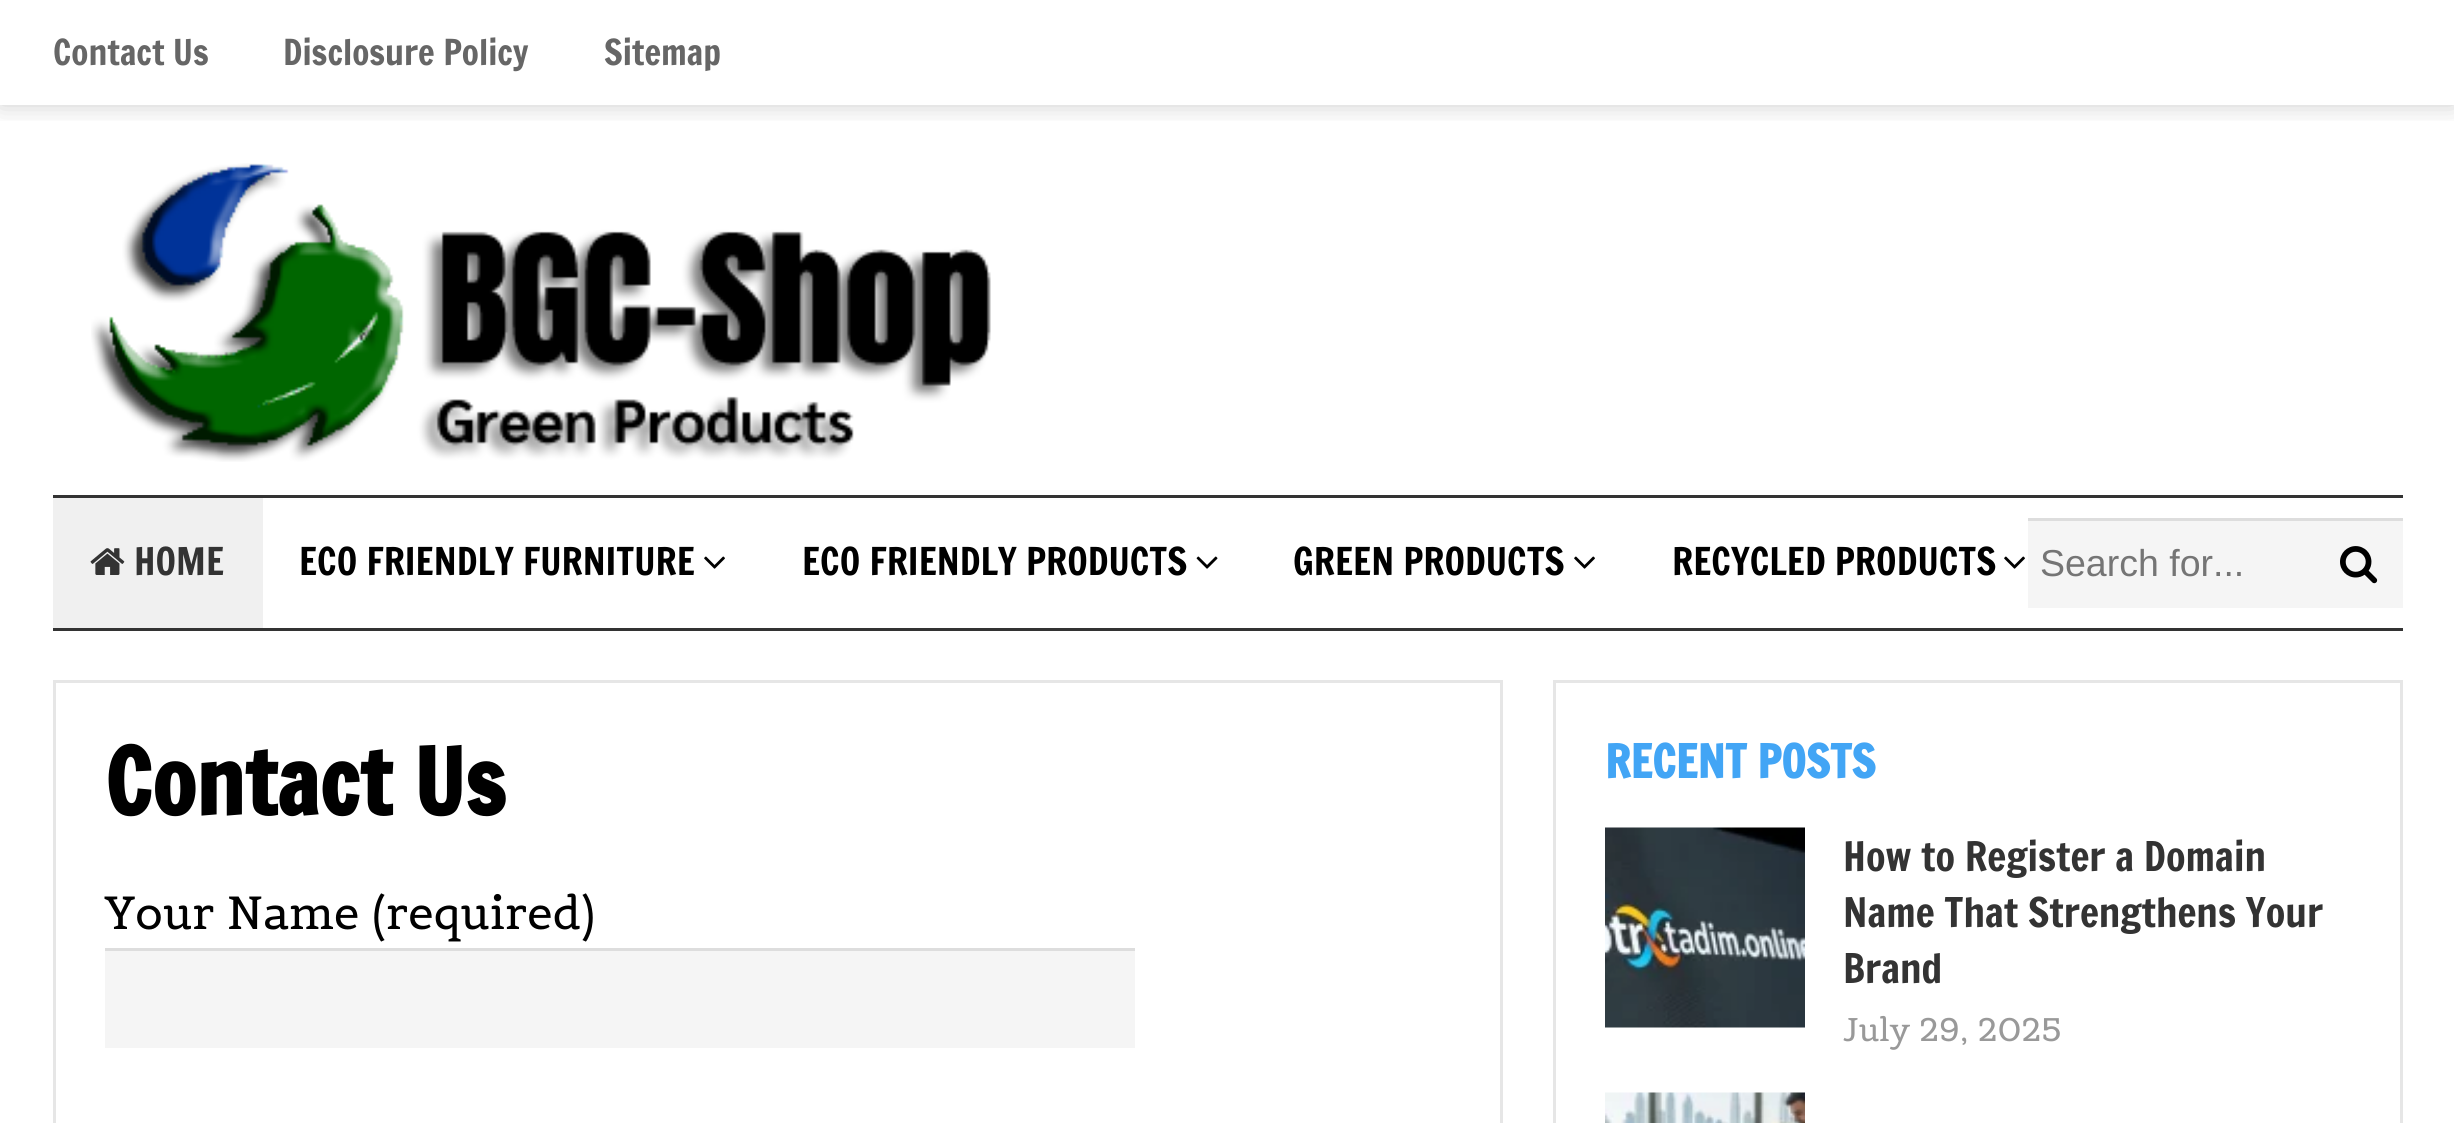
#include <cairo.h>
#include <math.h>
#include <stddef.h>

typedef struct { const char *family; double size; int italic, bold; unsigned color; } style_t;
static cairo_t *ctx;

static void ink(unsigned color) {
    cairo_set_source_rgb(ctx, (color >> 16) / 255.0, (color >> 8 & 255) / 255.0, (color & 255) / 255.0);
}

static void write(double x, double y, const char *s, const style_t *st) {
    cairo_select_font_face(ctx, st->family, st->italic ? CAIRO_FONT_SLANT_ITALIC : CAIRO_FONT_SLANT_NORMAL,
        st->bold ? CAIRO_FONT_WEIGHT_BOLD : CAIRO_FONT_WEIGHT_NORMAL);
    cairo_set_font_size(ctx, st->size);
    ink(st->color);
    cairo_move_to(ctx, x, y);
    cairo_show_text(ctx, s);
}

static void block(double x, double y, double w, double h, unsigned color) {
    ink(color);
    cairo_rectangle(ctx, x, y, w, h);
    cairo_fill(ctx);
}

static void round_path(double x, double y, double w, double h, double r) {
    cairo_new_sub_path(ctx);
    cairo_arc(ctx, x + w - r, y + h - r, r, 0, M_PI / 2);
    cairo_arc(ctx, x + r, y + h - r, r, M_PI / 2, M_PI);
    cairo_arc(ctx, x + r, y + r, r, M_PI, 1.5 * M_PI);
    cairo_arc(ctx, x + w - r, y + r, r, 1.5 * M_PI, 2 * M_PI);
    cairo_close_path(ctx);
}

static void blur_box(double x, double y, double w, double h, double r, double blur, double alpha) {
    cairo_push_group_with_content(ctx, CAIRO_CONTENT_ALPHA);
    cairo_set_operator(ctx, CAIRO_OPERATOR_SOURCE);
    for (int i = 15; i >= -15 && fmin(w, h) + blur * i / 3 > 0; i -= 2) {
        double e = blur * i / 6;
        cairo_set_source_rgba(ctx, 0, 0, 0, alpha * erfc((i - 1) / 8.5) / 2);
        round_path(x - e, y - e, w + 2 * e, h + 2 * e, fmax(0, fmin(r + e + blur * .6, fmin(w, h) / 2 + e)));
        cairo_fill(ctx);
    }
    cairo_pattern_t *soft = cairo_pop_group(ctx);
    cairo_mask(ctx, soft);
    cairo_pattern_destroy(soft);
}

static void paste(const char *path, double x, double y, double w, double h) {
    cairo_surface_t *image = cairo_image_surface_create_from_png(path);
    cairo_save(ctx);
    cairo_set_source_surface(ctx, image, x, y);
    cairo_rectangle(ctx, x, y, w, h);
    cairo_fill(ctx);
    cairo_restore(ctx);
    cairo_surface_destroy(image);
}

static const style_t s1 = {"Francois One", 35, 0, 0, 0x666666};
static const style_t s2 = {"Francois One", 37.5, 0, 0, 0x333333};
static const style_t s3 = {"Francois One", 37.5, 0, 0, 0x000000};
static const style_t s4 = {"Liberation Sans", 37.5, 0, 0, 0x757575};
static const style_t s5 = {"Francois One", 90, 0, 1, 0x000000};
static const style_t s6 = {"Belgrano", 46, 0, 0, 0x000000};
static const style_t s7 = {"Francois One", 45, 0, 1, 0x42a5f5};
static const style_t s8 = {"Francois One", 40, 0, 0, 0x333333};
static const style_t s9 = {"Belgrano", 32.5, 0, 0, 0x999999};

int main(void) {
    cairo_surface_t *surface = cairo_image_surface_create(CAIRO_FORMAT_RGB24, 2454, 1123);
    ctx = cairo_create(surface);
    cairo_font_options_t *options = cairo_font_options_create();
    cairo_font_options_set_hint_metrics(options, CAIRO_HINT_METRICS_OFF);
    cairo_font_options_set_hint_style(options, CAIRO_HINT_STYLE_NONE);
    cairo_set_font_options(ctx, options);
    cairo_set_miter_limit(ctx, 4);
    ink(0xffffff);
    cairo_paint(ctx);
    cairo_save(ctx);
    cairo_rectangle(ctx, 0, 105, 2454, 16);
    cairo_clip(ctx);
    ink(0x000000);
    blur_box(0, 0, 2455, 105, 0, 12.5, 0.2);
    cairo_restore(ctx);
    write(53, 65, "Contact Us", &s1);
    write(283, 65, "Disclosure Policy", &s1);
    write(604, 65, "Sitemap", &s1);
    paste("pic1.png", 91, 163, 900, 299);
    block(53, 495, 2350, 3, 0x333333);
    block(53, 628, 2350, 3, 0x333333);
    block(53, 498, 210, 130, 0xf0f0f0);
    paste("pic2.png", 90, 548, 35, 27);
    write(134, 575, "HOME", &s2);
    write(299, 575, "ECO FRIENDLY FURNITURE", &s3);
    paste("pic3.png", 704, 556, 21, 13);
    write(802, 575, "ECO FRIENDLY PRODUCTS", &s3);
    paste("pic4.png", 1196, 556, 22, 13);
    write(1293, 575, "GREEN PRODUCTS", &s3);
    paste("pic3.png", 1574, 556, 21, 13);
    write(1672, 575, "RECYCLED PRODUCTS", &s3);
    paste("pic3.png", 2004, 556, 21, 13);
    block(2028, 521, 375, 87, 0xf5f5f5);
    block(2028, 518, 375, 3, 0xdddddd);
    write(2040, 576, "Search for...", &s4);
    paste("pic5.png", 2340, 546, 38, 38);
    cairo_rectangle(ctx, 54.5, 681.5, 1447, 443);
    ink(0xe6e6e6);
    cairo_set_line_width(ctx, 3);
    cairo_stroke(ctx);
    write(105, 815, "Contact Us", &s5);
    write(105, 929, "Your Name (required)", &s6);
    block(105, 951, 1030, 97, 0xf5f5f5);
    block(105, 948, 1030, 3, 0xdddddd);
    cairo_rectangle(ctx, 1554.5, 681.5, 847, 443);
    ink(0xe6e6e6);
    cairo_stroke(ctx);
    write(1605, 778, "RECENT POSTS", &s7);
    paste("pic6.png", 1605, 827, 200, 201);
    write(1843, 871, "How to Register a Domain", &s8);
    write(1843, 927, "Name That Strengthens Your", &s8);
    write(1843, 983, "Brand", &s8);
    write(1843, 1041, "July 29, 2025", &s9);
    paste("pic7.png", 1605, 1092, 200, 31);
    cairo_surface_write_to_png(surface, "screenshot.png");
    cairo_font_options_destroy(options);
    cairo_destroy(ctx);
    cairo_surface_destroy(surface);
    return 0;
}
